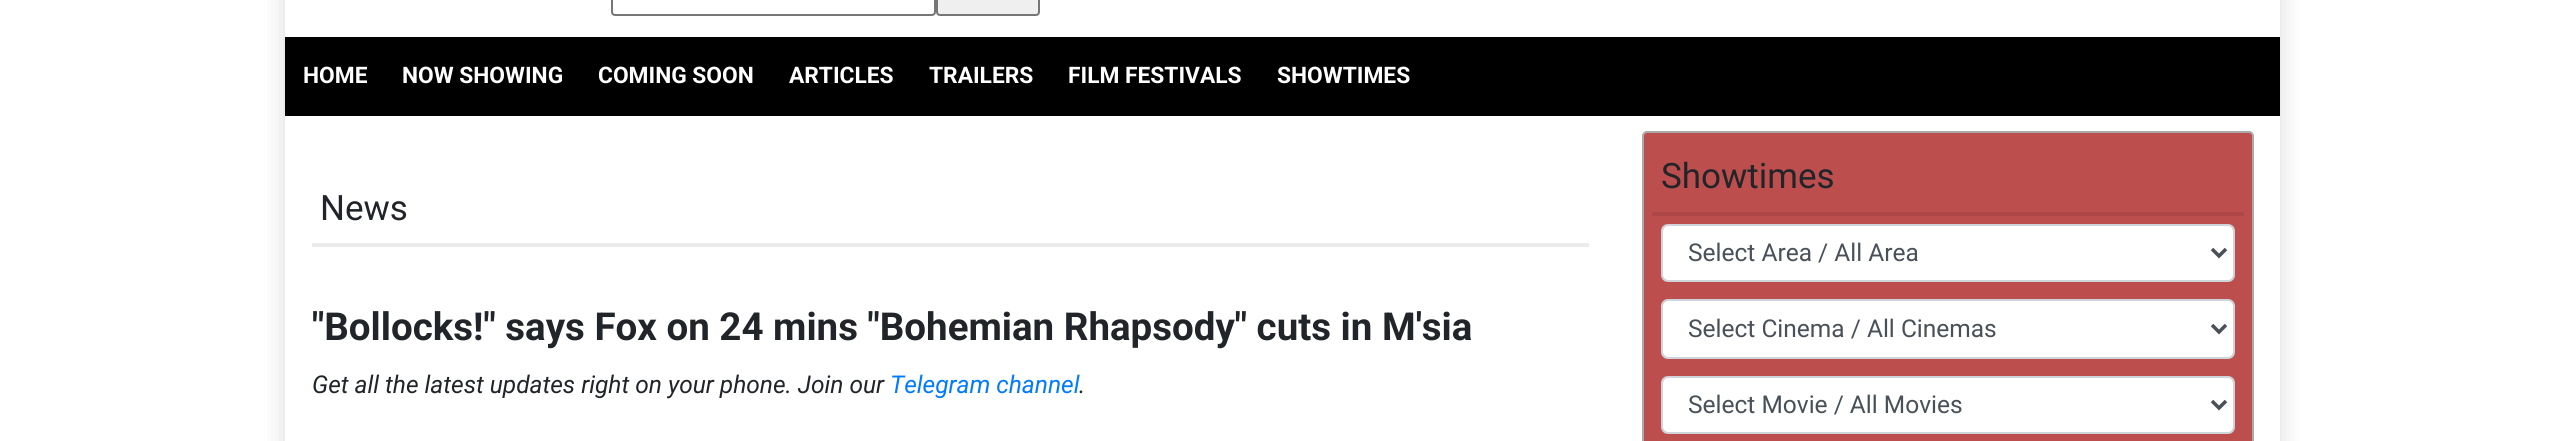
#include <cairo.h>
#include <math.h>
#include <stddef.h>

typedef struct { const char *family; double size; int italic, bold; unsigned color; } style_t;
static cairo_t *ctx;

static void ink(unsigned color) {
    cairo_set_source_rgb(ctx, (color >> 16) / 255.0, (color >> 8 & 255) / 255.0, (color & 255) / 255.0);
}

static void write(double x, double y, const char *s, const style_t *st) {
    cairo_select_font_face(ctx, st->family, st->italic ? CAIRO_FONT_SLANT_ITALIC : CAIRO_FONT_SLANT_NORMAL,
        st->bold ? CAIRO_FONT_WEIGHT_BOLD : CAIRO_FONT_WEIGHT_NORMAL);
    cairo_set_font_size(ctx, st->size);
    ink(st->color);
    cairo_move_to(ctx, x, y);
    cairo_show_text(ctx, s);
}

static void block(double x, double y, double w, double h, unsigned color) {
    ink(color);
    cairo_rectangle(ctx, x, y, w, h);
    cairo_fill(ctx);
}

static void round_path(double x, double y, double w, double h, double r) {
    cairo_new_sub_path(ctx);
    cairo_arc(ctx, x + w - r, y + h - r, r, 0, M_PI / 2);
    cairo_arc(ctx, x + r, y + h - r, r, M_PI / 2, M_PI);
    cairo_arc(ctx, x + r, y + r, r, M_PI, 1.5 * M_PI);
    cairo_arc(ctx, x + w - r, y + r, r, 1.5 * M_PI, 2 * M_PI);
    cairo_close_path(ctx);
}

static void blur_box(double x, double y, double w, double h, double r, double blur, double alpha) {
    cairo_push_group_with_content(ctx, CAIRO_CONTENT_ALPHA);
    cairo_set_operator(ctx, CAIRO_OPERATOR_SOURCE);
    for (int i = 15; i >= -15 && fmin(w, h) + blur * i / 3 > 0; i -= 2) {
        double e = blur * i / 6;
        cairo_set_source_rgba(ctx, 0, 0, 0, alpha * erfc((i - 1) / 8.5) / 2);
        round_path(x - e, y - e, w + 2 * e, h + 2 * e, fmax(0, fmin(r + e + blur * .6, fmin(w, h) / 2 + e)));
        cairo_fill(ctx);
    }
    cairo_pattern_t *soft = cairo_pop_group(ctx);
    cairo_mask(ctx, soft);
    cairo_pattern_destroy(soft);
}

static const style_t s1 = {"Roboto", 22.75, 0, 1, 0xffffff};
static const style_t s2 = {"Roboto", 35, 0, 0, 0x212529};
static const style_t s3 = {"Roboto", 38.5, 0, 1, 0x212529};
static const style_t s4 = {"Roboto", 24.5, 1, 0, 0x212529};
static const style_t s5 = {"Roboto", 24.5, 1, 0, 0x007bff};
static const style_t s6 = {"Roboto", 24.5, 0, 0, 0x495057};

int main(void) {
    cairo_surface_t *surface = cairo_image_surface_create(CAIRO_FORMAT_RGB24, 2565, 441);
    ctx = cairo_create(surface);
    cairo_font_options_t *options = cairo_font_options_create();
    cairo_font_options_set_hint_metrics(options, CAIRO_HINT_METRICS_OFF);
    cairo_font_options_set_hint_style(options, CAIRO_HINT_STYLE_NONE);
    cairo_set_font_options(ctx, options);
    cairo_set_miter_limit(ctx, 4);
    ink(0xffffff);
    cairo_paint(ctx);
    ink(0x000000);
    blur_box(285, -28, 1995, 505, 0, 12, 0.15);
    block(285, 0, 1995, 441, 0xffffff);
    round_path(612, -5, 323, 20, 3);
    ink(0x767676);
    cairo_stroke(ctx);
    ink(0xefefef);
    round_path(937, -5, 102, 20, 3);
    cairo_fill_preserve(ctx);
    ink(0x767676);
    cairo_stroke(ctx);
    block(285, 37, 1995, 79, 0x000000);
    write(303, 83, "HOME", &s1);
    write(402, 83, "NOW SHOWING", &s1);
    write(598, 83, "COMING SOON", &s1);
    write(789, 83, "ARTICLES", &s1);
    write(929, 83, "TRAILERS", &s1);
    write(1068, 83, "FILM FESTIVALS", &s1);
    write(1277, 83, "SHOWTIMES", &s1);
    block(312, 243, 1277, 4, 0xebebeb);
    write(320, 220, "News", &s2);
    write(312, 340, "\"Bollocks!\" says Fox on 24 mins \"Bohemian Rhapsody\" cuts in M'sia", &s3);
    write(312, 393, "Get all the latest updates right on your phone. Join our", &s4);
    write(890, 393, "Telegram channel", &s5);
    write(1079, 393, ".", &s4);
    ink(0xbd4e4e);
    round_path(1643, 132, 610, 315, 4);
    cairo_fill_preserve(ctx);
    ink(0xaaaaaa);
    cairo_stroke(ctx);
    block(1652, 212, 592, 4, 0xae4848);
    write(1661, 188, "Showtimes", &s2);
    ink(0xffffff);
    round_path(1663, 226, 570, 54, 4);
    cairo_fill(ctx);
    round_path(1662, 225, 572, 56, 6);
    ink(0xced4da);
    cairo_stroke(ctx);
    cairo_new_path(ctx);
    cairo_move_to(ctx, 2212, 249);
    cairo_line_to(ctx, 2219, 256);
    cairo_line_to(ctx, 2226, 249);
    ink(0x495057);
    cairo_set_line_width(ctx, 3.5);
    cairo_stroke(ctx);
    write(1688, 261, "Select Area / All Area", &s6);
    ink(0xffffff);
    round_path(1663, 301, 570, 56, 4);
    cairo_fill(ctx);
    round_path(1662, 300, 572, 58, 6);
    ink(0xced4da);
    cairo_set_line_width(ctx, 2);
    cairo_stroke(ctx);
    cairo_new_path(ctx);
    cairo_move_to(ctx, 2212, 325);
    cairo_line_to(ctx, 2219, 332);
    cairo_line_to(ctx, 2226, 325);
    ink(0x495057);
    cairo_set_line_width(ctx, 3.5);
    cairo_stroke(ctx);
    write(1688, 337, "Select Cinema / All Cinemas", &s6);
    ink(0xffffff);
    round_path(1663, 378, 570, 54, 4);
    cairo_fill(ctx);
    round_path(1662, 377, 572, 56, 6);
    ink(0xced4da);
    cairo_set_line_width(ctx, 2);
    cairo_stroke(ctx);
    cairo_new_path(ctx);
    cairo_move_to(ctx, 2212, 401);
    cairo_line_to(ctx, 2219, 408);
    cairo_line_to(ctx, 2226, 401);
    ink(0x495057);
    cairo_set_line_width(ctx, 3.5);
    cairo_stroke(ctx);
    write(1688, 413, "Select Movie / All Movies", &s6);
    cairo_surface_write_to_png(surface, "screenshot.png");
    cairo_font_options_destroy(options);
    cairo_destroy(ctx);
    cairo_surface_destroy(surface);
    return 0;
}
